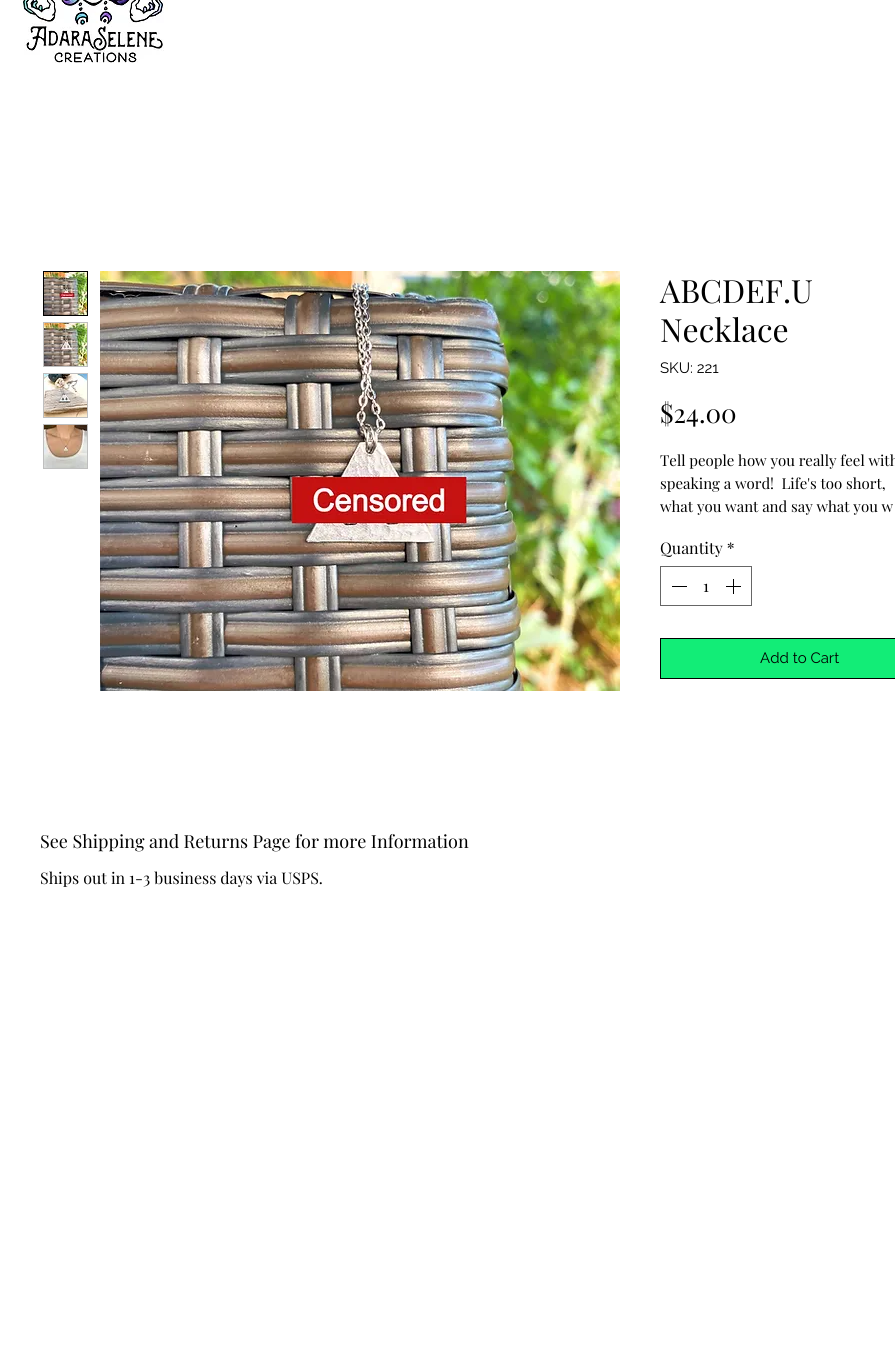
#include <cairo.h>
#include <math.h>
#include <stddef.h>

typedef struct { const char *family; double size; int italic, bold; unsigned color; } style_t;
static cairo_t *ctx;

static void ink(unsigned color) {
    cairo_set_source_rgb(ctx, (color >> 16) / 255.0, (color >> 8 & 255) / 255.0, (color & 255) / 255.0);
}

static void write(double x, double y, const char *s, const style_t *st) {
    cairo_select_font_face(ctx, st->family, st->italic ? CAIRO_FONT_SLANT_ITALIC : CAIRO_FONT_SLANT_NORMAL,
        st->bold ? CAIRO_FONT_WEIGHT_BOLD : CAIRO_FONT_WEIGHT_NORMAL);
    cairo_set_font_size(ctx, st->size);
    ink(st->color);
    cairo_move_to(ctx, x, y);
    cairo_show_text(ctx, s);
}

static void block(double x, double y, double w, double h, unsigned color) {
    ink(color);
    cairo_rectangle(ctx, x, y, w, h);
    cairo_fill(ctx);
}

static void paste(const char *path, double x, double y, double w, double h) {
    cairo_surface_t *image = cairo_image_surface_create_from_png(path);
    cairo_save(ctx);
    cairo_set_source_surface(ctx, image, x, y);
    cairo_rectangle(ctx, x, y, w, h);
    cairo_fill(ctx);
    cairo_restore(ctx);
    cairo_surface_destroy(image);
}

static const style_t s1 = {"Playfair Display", 32, 0, 0, 0x000000};
static const style_t s2 = {"Raleway", 15, 0, 0, 0x000000};
static const style_t s3 = {"Playfair Display", 26, 0, 0, 0x000000};
static const style_t s4 = {"Playfair Display", 15, 0, 0, 0x000000};
static const style_t s5 = {"Playfair Display", 16, 0, 0, 0x000000};
static const style_t s6 = {"Playfair Display", 18, 0, 0, 0x000000};

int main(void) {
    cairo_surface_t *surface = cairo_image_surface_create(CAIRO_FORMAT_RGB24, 895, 1359);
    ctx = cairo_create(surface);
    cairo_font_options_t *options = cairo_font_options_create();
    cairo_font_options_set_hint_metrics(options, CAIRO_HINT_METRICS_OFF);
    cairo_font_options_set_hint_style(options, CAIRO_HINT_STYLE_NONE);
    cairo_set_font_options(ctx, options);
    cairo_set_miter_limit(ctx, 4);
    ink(0xffffff);
    cairo_paint(ctx);
    paste("pic1.png", 20, 0, 148, 63);
    cairo_rectangle(ctx, 43.5, 271.5, 44, 44);
    ink(0x000000);
    cairo_set_line_width(ctx, 1);
    cairo_stroke(ctx);
    paste("pic2.png", 44, 272, 43, 43);
    block(43, 322, 45, 45, 0xbfbfbf);
    paste("pic3.png", 44, 323, 43, 43);
    block(43, 373, 45, 45, 0xbfbfbf);
    paste("pic4.png", 44, 374, 43, 43);
    block(43, 424, 45, 45, 0xbfbfbf);
    paste("pic5.png", 44, 425, 43, 43);
    paste("pic6.png", 100, 271, 520, 420);
    write(660, 303, "ABCDEF.U", &s1);
    write(660, 342, "Necklace", &s1);
    write(660, 373, "SKU: 221", &s2);
    write(660, 423, "$24.00", &s3);
    write(660, 466, "Tell people how you really feel with", &s4);
    write(660, 489, "speaking a word!  Life's too short,", &s4);
    write(660, 512, "what you want and say what you w", &s4);
    write(660, 554, "Quantity *", &s5);
    cairo_rectangle(ctx, 660.5, 566.5, 91, 39);
    ink(0x666666);
    cairo_stroke(ctx);
    block(672, 586, 15, 1, 0x000000);
    write(703, 592, "1", &s5);
    paste("pic7.png", 726, 579, 15, 15);
    ink(0x12ed77);
    cairo_rectangle(ctx, 660.5, 638.5, 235, 40);
    cairo_fill_preserve(ctx);
    ink(0x000000);
    cairo_stroke(ctx);
    write(760, 663, "Add to Cart", &s2);
    write(40, 848, "See Shipping and Returns Page for more Information", &s6);
    write(40, 884, "Ships out in 1-3 business days via USPS.", &s5);
    cairo_surface_write_to_png(surface, "screenshot.png");
    cairo_font_options_destroy(options);
    cairo_destroy(ctx);
    cairo_surface_destroy(surface);
    return 0;
}
